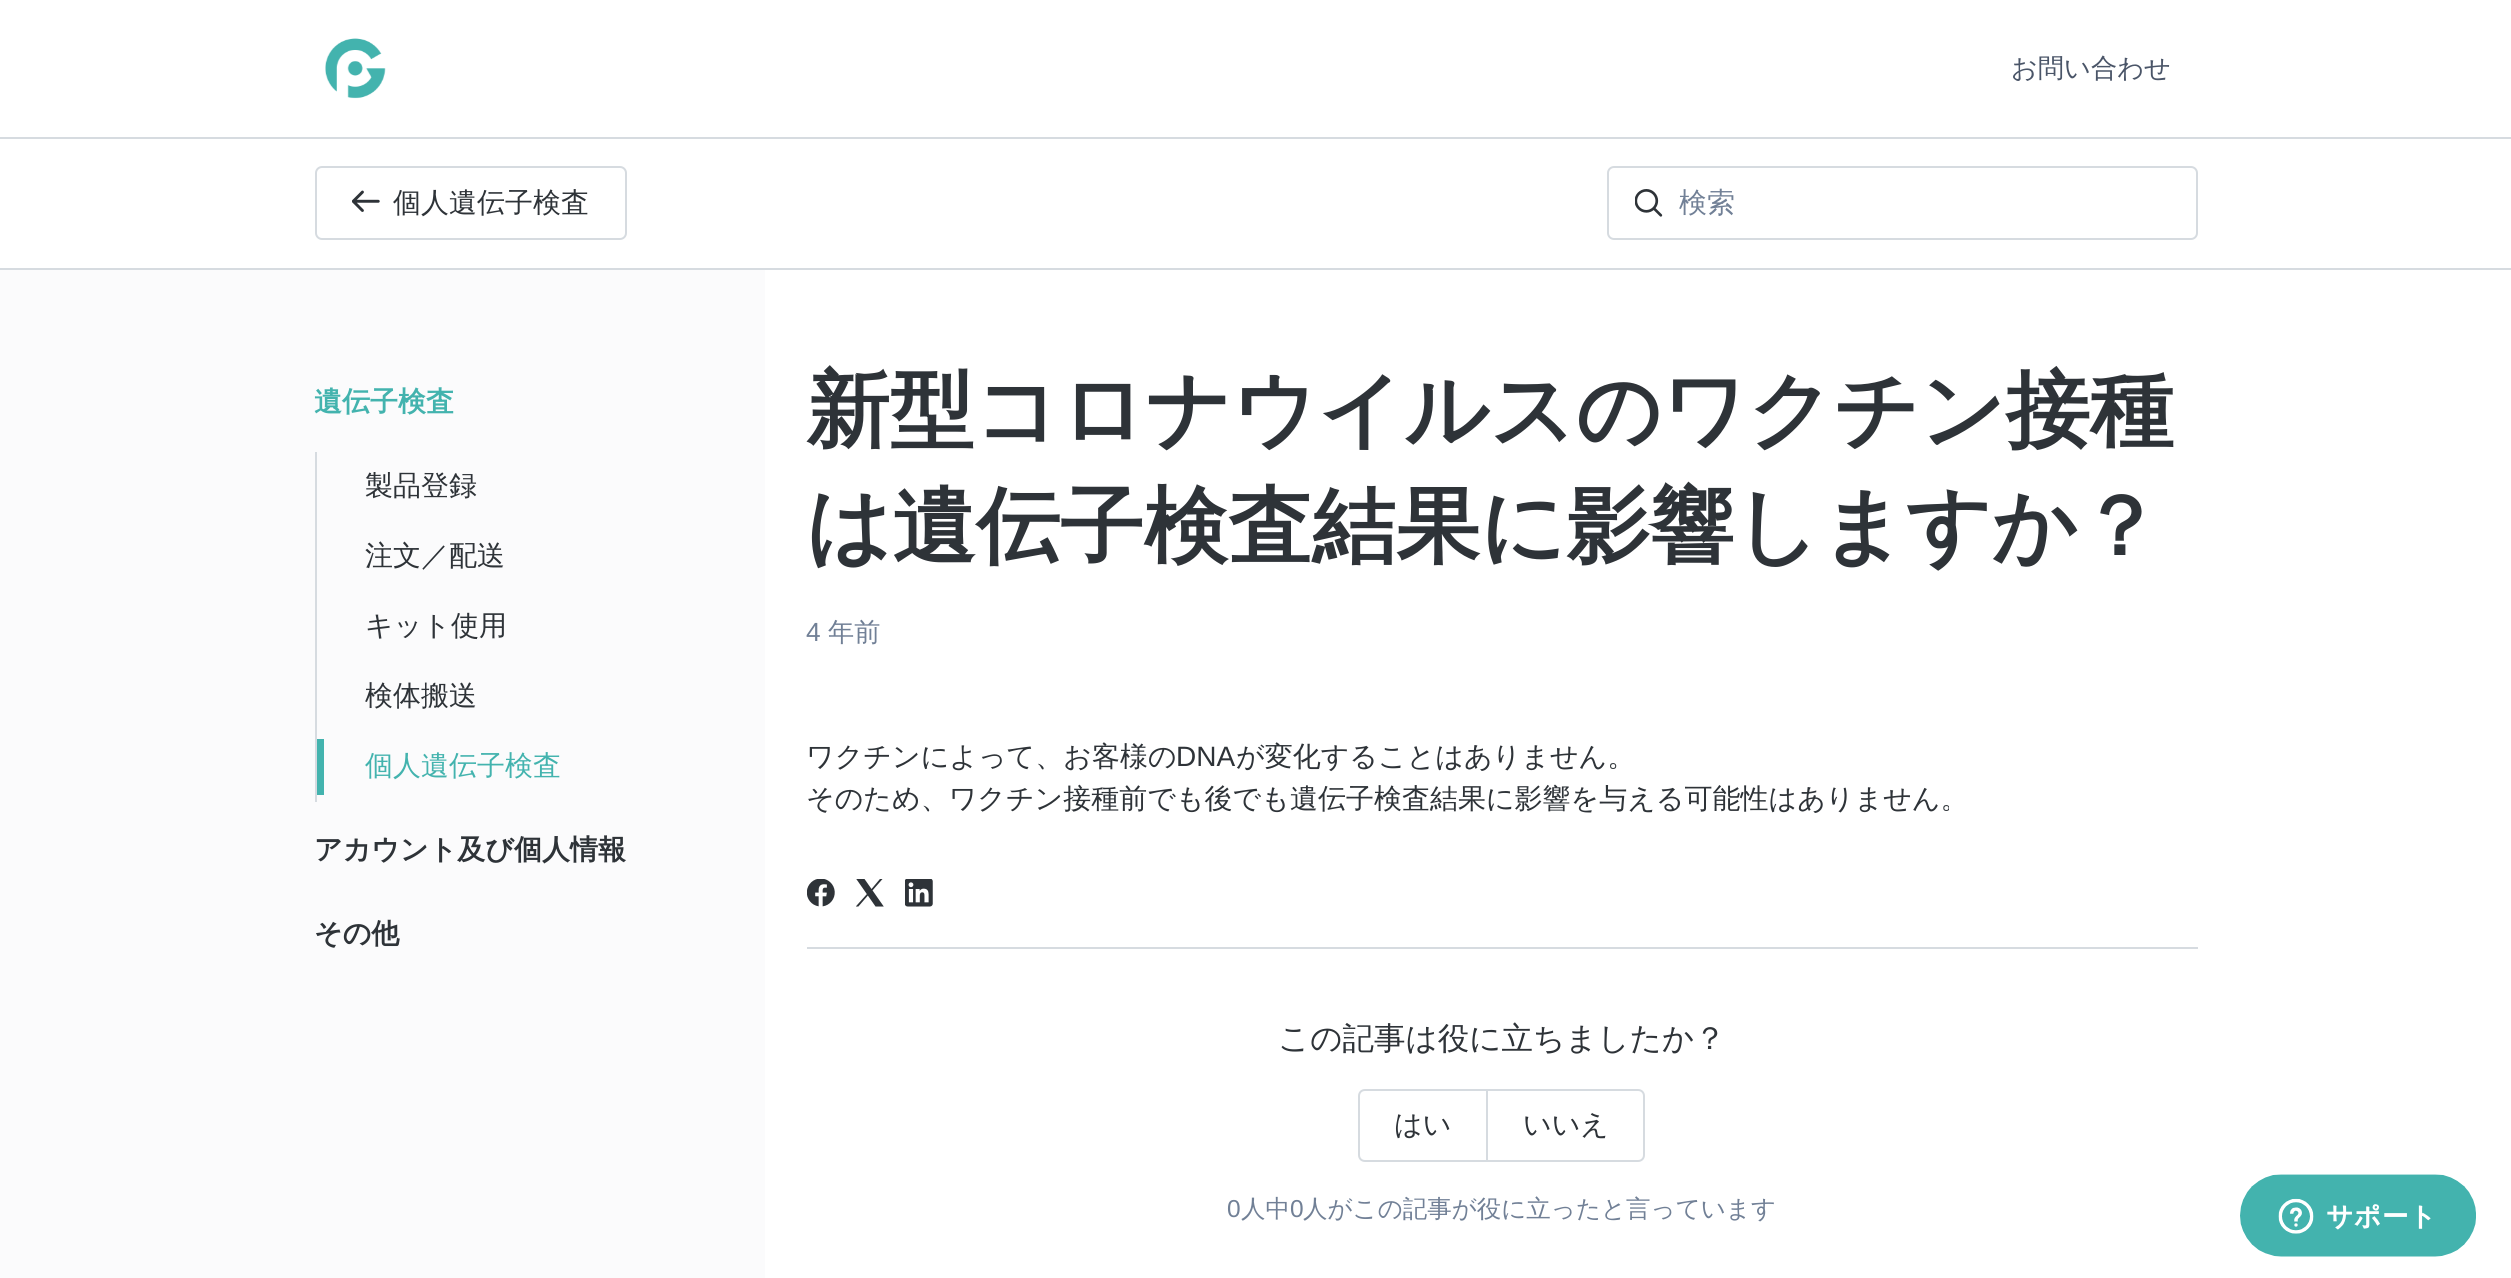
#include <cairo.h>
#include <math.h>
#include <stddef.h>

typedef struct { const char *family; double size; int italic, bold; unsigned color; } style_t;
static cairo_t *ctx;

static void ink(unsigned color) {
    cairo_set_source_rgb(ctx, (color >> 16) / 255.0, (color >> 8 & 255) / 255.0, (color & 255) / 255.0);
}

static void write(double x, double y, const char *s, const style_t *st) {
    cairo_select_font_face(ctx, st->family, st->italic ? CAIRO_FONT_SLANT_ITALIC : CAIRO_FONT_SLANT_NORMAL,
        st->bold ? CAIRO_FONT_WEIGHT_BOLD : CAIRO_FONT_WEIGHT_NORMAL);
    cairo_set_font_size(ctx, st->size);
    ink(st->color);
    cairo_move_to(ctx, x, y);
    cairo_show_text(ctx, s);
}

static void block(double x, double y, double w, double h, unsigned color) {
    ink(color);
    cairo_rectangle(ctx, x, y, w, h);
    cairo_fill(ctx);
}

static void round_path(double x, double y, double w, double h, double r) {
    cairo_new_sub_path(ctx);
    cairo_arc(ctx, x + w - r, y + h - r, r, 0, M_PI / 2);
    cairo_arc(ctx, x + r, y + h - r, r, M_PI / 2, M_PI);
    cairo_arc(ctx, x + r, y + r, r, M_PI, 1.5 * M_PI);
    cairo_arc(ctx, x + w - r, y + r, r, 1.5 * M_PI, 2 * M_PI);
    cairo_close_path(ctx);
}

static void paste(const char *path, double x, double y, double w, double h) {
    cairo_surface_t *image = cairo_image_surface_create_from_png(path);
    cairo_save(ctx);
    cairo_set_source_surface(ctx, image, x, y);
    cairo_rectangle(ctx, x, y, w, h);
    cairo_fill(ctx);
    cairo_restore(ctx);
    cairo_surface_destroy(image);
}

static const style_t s1 = {"WenQuanYi Zen Hei Medium", 26.25, 0, 0, 0x4a5568};
static const style_t s2 = {"WenQuanYi Zen Hei Medium", 28, 0, 0, 0x2e3338};
static const style_t s3 = {"WenQuanYi Zen Hei Medium", 28, 0, 0, 0x718096};
static const style_t s4 = {"WenQuanYi Zen Hei", 28, 0, 1, 0x43b3ae};
static const style_t s5 = {"WenQuanYi Zen Hei Medium", 28, 0, 0, 0x43b3ae};
static const style_t s6 = {"WenQuanYi Zen Hei", 28, 0, 1, 0x2e3338};
static const style_t s7 = {"WenQuanYi Zen Hei", 84, 0, 1, 0x2e3338};
static const style_t s8 = {"Liberation Sans", 26.25, 0, 0, 0x718096};
static const style_t s9 = {"WenQuanYi Zen Hei Medium", 26.25, 0, 0, 0x718096};
static const style_t s10 = {"Liberation Sans", 28, 0, 0, 0x2e3338};
static const style_t s11 = {"WenQuanYi Zen Hei Medium", 31.5, 0, 0, 0x2e3338};
static const style_t s12 = {"Liberation Sans", 24.5, 0, 0, 0x718096};
static const style_t s13 = {"WenQuanYi Zen Hei Medium", 24.5, 0, 0, 0x718096};

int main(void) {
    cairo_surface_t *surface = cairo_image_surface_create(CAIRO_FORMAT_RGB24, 2511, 1278);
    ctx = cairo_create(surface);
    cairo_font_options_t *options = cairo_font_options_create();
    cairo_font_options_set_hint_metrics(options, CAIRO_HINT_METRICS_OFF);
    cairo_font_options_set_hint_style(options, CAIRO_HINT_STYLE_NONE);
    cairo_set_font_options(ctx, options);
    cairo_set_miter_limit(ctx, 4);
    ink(0xffffff);
    cairo_paint(ctx);
    block(0, 137, 2511, 2, 0xd6dbe0);
    paste("pic1.png", 325, 38, 61, 61);
    write(2011, 77, "お問い合わせ", &s1);
    block(0, 268, 2511, 2, 0xd6dbe0);
    round_path(316, 167, 310, 72, 6);
    cairo_stroke(ctx);
    paste("pic2.png", 352, 190, 28, 22);
    write(393, 212, "個人遺伝子検査", &s2);
    round_path(1608, 167, 589, 72, 6);
    ink(0xd6dbe0);
    cairo_stroke(ctx);
    paste("pic3.png", 1635, 189, 28, 28);
    write(1679, 212, "検索", &s3);
    block(0, 270, 765, 1008, 0xfbfbfc);
    write(314, 411, "遺伝子検査", &s4);
    block(315, 452, 2, 350, 0xd6dbe0);
    write(365, 495, "製品登録", &s2);
    write(365, 565, "注文／配送", &s2);
    write(365, 635, "キット使用", &s2);
    write(365, 705, "検体搬送", &s2);
    block(317, 739, 7, 56, 0x43b3ae);
    write(365, 775, "個人遺伝子検査", &s5);
    write(314, 859, "アカウント及び個人情報", &s6);
    write(314, 943, "その他", &s6);
    write(806, 439, "新型コロナウイルスのワクチン接種", &s7);
    write(806, 555, "は遺伝子検査結果に影響しますか？", &s7);
    write(806, 641, "4", &s8);
    write(828, 641, "年前", &s9);
    write(806, 766, "ワクチンによって、お客様の", &s2);
    write(1176, 766, "DNA", &s10);
    write(1236, 766, "が変化することはありません。", &s2);
    write(806, 808, "そのため、ワクチン接種前でも後でも遺伝子検査結果に影響を与える可能性はありません。", &s2);
    paste("pic4.png", 807, 879, 28, 28);
    paste("pic5.png", 856, 879, 28, 28);
    paste("pic6.png", 905, 879, 28, 28);
    block(807, 947, 1391, 2, 0xd6dbe0);
    write(1278, 1049, "この記事は役に立ちましたか？", &s11);
    cairo_new_path(ctx);
    cairo_move_to(ctx, 1365, 1090);
    cairo_line_to(ctx, 1487, 1090);
    cairo_line_to(ctx, 1487, 1161);
    cairo_line_to(ctx, 1365, 1161);
    cairo_curve_to(ctx, 1361.5, 1161, 1359, 1158.5, 1359, 1155);
    cairo_line_to(ctx, 1359, 1096);
    cairo_curve_to(ctx, 1359, 1092.5, 1361.5, 1090, 1365, 1090);
    cairo_close_path(ctx);
    ink(0xd6dbe0);
    cairo_stroke(ctx);
    write(1394, 1134, "はい", &s2);
    cairo_new_path(ctx);
    cairo_move_to(ctx, 1487, 1090);
    cairo_line_to(ctx, 1638, 1090);
    cairo_curve_to(ctx, 1641.5, 1090, 1644, 1092.5, 1644, 1096);
    cairo_line_to(ctx, 1644, 1155);
    cairo_curve_to(ctx, 1644, 1158.5, 1641.5, 1161, 1638, 1161);
    cairo_line_to(ctx, 1487, 1161);
    cairo_close_path(ctx);
    ink(0xd6dbe0);
    cairo_stroke(ctx);
    write(1523, 1134, "いいえ", &s2);
    write(1227, 1217, "0", &s12);
    write(1241, 1217, "人中", &s13);
    write(1290, 1217, "0", &s12);
    write(1303, 1217, "人がこの記事が役に立ったと言っています", &s13);
    paste("pic7.png", 2240, 1174, 236, 83);
    cairo_surface_write_to_png(surface, "screenshot.png");
    cairo_font_options_destroy(options);
    cairo_destroy(ctx);
    cairo_surface_destroy(surface);
    return 0;
}
